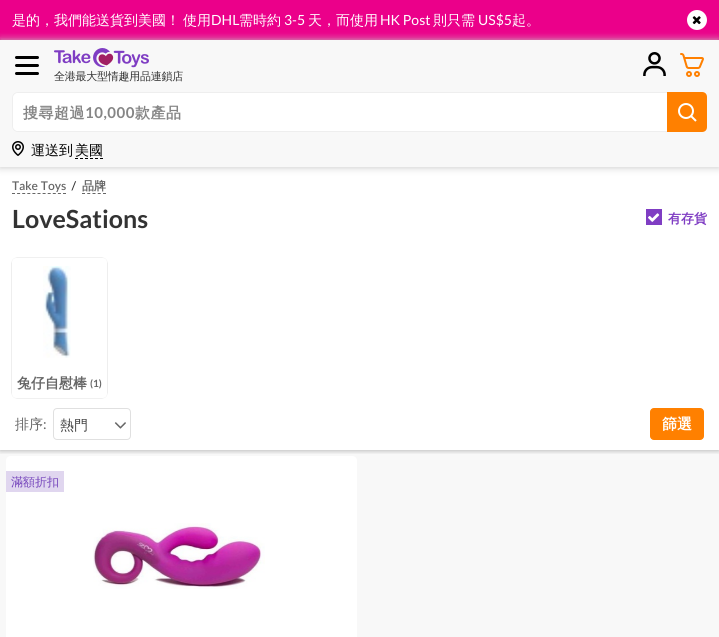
#include <cairo.h>
#include <math.h>
#include <stddef.h>

typedef struct { const char *family; double size; int italic, bold; unsigned color; } style_t;
static cairo_t *ctx;

static void ink(unsigned color) {
    cairo_set_source_rgb(ctx, (color >> 16) / 255.0, (color >> 8 & 255) / 255.0, (color & 255) / 255.0);
}

static void write(double x, double y, const char *s, const style_t *st) {
    cairo_select_font_face(ctx, st->family, st->italic ? CAIRO_FONT_SLANT_ITALIC : CAIRO_FONT_SLANT_NORMAL,
        st->bold ? CAIRO_FONT_WEIGHT_BOLD : CAIRO_FONT_WEIGHT_NORMAL);
    cairo_set_font_size(ctx, st->size);
    ink(st->color);
    cairo_move_to(ctx, x, y);
    cairo_show_text(ctx, s);
}

static void write_spaced(double x, double y, const char *s, double letter, double word) {
    cairo_move_to(ctx, x, y);
    while (*s) {
        char ch[5] = {0};
        int n = 0;
        do ch[n++] = *s++; while ((*s & 0xC0) == 0x80);
        cairo_show_text(ctx, ch);
        cairo_rel_move_to(ctx, letter + word * (*ch == ' '), 0);
    }
}

static void block(double x, double y, double w, double h, unsigned color) {
    ink(color);
    cairo_rectangle(ctx, x, y, w, h);
    cairo_fill(ctx);
}

static void round_path(double x, double y, double w, double h, double r) {
    cairo_new_sub_path(ctx);
    cairo_arc(ctx, x + w - r, y + h - r, r, 0, M_PI / 2);
    cairo_arc(ctx, x + r, y + h - r, r, M_PI / 2, M_PI);
    cairo_arc(ctx, x + r, y + r, r, M_PI, 1.5 * M_PI);
    cairo_arc(ctx, x + w - r, y + r, r, 1.5 * M_PI, 2 * M_PI);
    cairo_close_path(ctx);
}

static void blur_box(double x, double y, double w, double h, double r, double blur, double alpha) {
    cairo_push_group_with_content(ctx, CAIRO_CONTENT_ALPHA);
    cairo_set_operator(ctx, CAIRO_OPERATOR_SOURCE);
    for (int i = 15; i >= -15 && fmin(w, h) + blur * i / 3 > 0; i -= 2) {
        double e = blur * i / 6;
        cairo_set_source_rgba(ctx, 0, 0, 0, alpha * erfc((i - 1) / 8.5) / 2);
        round_path(x - e, y - e, w + 2 * e, h + 2 * e, fmax(0, fmin(r + e + blur * .6, fmin(w, h) / 2 + e)));
        cairo_fill(ctx);
    }
    cairo_pattern_t *soft = cairo_pop_group(ctx);
    cairo_mask(ctx, soft);
    cairo_pattern_destroy(soft);
}

static void paste(const char *path, double x, double y, double w, double h) {
    cairo_surface_t *image = cairo_image_surface_create_from_png(path);
    cairo_save(ctx);
    cairo_set_source_surface(ctx, image, x, y);
    cairo_rectangle(ctx, x, y, w, h);
    cairo_fill(ctx);
    cairo_restore(ctx);
    cairo_surface_destroy(image);
}

static const style_t s1 = {"WenQuanYi Zen Hei Medium", 14, 0, 0, 0xffffff};
static const style_t s2 = {"Lato", 14, 0, 0, 0xffffff};
static const style_t s3 = {"WenQuanYi Zen Hei Medium", 14, 0, 0, 0x000000};
static const style_t s4 = {"Lato SemiBold", 12, 0, 0, 0x666666};
static const style_t s5 = {"Lato SemiBold", 12, 0, 0, 0x333333};
static const style_t s6 = {"WenQuanYi Zen Hei", 12, 0, 1, 0x666666};
static const style_t s7 = {"Lato", 25, 0, 1, 0x333333};
static const style_t s8 = {"WenQuanYi Zen Hei", 13, 0, 1, 0x7f3dc3};
static const style_t s9 = {"WenQuanYi Zen Hei", 14, 0, 1, 0x666666};
static const style_t s10 = {"Lato", 10, 0, 1, 0x666666};
static const style_t s11 = {"WenQuanYi Zen Hei Medium", 14, 0, 0, 0x666666};
static const style_t s12 = {"Lato", 14, 0, 0, 0x666666};
static const style_t s13 = {"WenQuanYi Zen Hei Medium", 14, 0, 0, 0x444444};
static const style_t s14 = {"WenQuanYi Zen Hei", 15, 0, 1, 0xffffff};
static const style_t s15 = {"WenQuanYi Zen Hei Medium", 12, 0, 0, 0x7646bc};

int main(void) {
    cairo_surface_t *surface = cairo_image_surface_create(CAIRO_FORMAT_RGB24, 719, 637);
    ctx = cairo_create(surface);
    cairo_font_options_t *options = cairo_font_options_create();
    cairo_font_options_set_hint_metrics(options, CAIRO_HINT_METRICS_OFF);
    cairo_font_options_set_hint_style(options, CAIRO_HINT_STYLE_NONE);
    cairo_set_font_options(ctx, options);
    cairo_set_miter_limit(ctx, 4);
    ink(0xffffff);
    cairo_paint(ctx);
    block(0, 0, 719, 40, 0xeb008a);
    write(12, 25, "是的，我們能送貨到美國！", &s1);
    write(183, 25, "使用", &s1);
    write(211, 25, "DHL", &s2);
    write(239, 25, "需時約", &s1);
    write(284, 25, "3-5", &s2);
    write(308, 25, "天，而使用", &s1);
    write(380, 25, "HK Post", &s2);
    write(433, 25, "則只需", &s1);
    write(478, 25, "US$5", &s2);
    write(512, 25, "起。", &s1);
    cairo_new_path(ctx);
    cairo_arc(ctx, 697, 20, 10, 0, 2 * M_PI);
    cairo_fill(ctx);
    paste("pic1.png", 692, 16, 9, 9);
    ink(0xc3c3c3);
    blur_box(0, 40, 719, 127, 0, 4, 1);
    block(0, 40, 719, 127, 0xf8f8f8);
    ink(0x000000);
    round_path(15, 56, 24, 3, 1.5);
    cairo_fill(ctx);
    round_path(15, 64, 24, 3, 1.5);
    cairo_fill(ctx);
    round_path(15, 72, 24, 3, 1.5);
    cairo_fill(ctx);
    paste("pic2.png", 54, 48, 95, 20);
    cairo_set_font_size(ctx, 11);
    ink(0x333333);
    write_spaced(54, 80, "全港最大型情趣用品連鎖店", -0.25, 0);
    paste("pic3.png", 643, 52, 23, 24);
    paste("pic4.png", 680, 53, 24, 24);
    round_path(12.5, 92.5, 694, 39, 5.5);
    ink(0xeeeeee);
    cairo_set_line_width(ctx, 1);
    cairo_stroke(ctx);
    ink(0xffffff);
    round_path(13, 93, 693, 38, 5);
    cairo_fill(ctx);
    cairo_select_font_face(ctx, "WenQuanYi Zen Hei", CAIRO_FONT_SLANT_NORMAL, CAIRO_FONT_WEIGHT_BOLD);
    cairo_set_font_size(ctx, 15);
    ink(0x858585);
    write_spaced(23, 118, "搜尋超過", 0.5, 0);
    cairo_select_font_face(ctx, "Lato", CAIRO_FONT_SLANT_NORMAL, CAIRO_FONT_WEIGHT_BOLD);
    write_spaced(85, 118, "10,000", 0.5, 0);
    cairo_select_font_face(ctx, "WenQuanYi Zen Hei", CAIRO_FONT_SLANT_NORMAL, CAIRO_FONT_WEIGHT_BOLD);
    write_spaced(135, 118, "款產品", 0.5, 0);
    ink(0xff8000);
    cairo_new_path(ctx);
    cairo_move_to(ctx, 667, 92);
    cairo_line_to(ctx, 702, 92);
    cairo_curve_to(ctx, 705, 92, 707, 94, 707, 97);
    cairo_line_to(ctx, 707, 127);
    cairo_curve_to(ctx, 707, 130, 705, 132, 702, 132);
    cairo_line_to(ctx, 667, 132);
    cairo_close_path(ctx);
    cairo_fill(ctx);
    paste("pic5.png", 678, 103, 19, 19);
    paste("pic6.png", 12, 141, 12, 15);
    write(31, 155, "運送到", &s3);
    write(75, 155, "美國", &s3);
    cairo_new_path(ctx);
    cairo_move_to(ctx, 75, 158.5);
    cairo_line_to(ctx, 103, 158.5);
    cairo_set_dash(ctx, (double[]){3, 2}, 2, 0);
    cairo_stroke(ctx);
    write(12, 190, "Take Toys", &s4);
    cairo_new_path(ctx);
    cairo_move_to(ctx, 12, 193.5);
    cairo_line_to(ctx, 66, 193.5);
    cairo_set_dash(ctx, (double[]){3, 2.1}, 2, 0);
    cairo_stroke(ctx);
    write(71, 190, "/", &s5);
    write(82, 190, "品牌", &s6);
    cairo_new_path(ctx);
    cairo_move_to(ctx, 82, 193.5);
    cairo_line_to(ctx, 106, 193.5);
    cairo_set_dash(ctx, (double[]){3, 2.25}, 2, 0);
    cairo_stroke(ctx);
    write(12, 228, "LoveSations", &s7);
    block(646, 209, 16, 16, 0x7f3dc3);
    paste("pic7.png", 648, 213, 12, 9);
    write(668, 223, "有存貨", &s8);
    cairo_save(ctx);
    cairo_set_fill_rule(ctx, CAIRO_FILL_RULE_EVEN_ODD);
    cairo_new_path(ctx);
    cairo_move_to(ctx, 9, 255);
    cairo_line_to(ctx, 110, 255);
    cairo_line_to(ctx, 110, 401);
    cairo_line_to(ctx, 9, 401);
    cairo_close_path(ctx);
    cairo_move_to(ctx, 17, 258);
    cairo_line_to(ctx, 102, 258);
    cairo_curve_to(ctx, 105, 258, 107, 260, 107, 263);
    cairo_line_to(ctx, 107, 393);
    cairo_curve_to(ctx, 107, 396, 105, 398, 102, 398);
    cairo_line_to(ctx, 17, 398);
    cairo_curve_to(ctx, 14, 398, 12, 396, 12, 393);
    cairo_line_to(ctx, 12, 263);
    cairo_curve_to(ctx, 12, 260, 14, 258, 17, 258);
    cairo_close_path(ctx);
    cairo_clip(ctx);
    ink(0x000000);
    blur_box(12, 258, 95, 140, 5, 0.5, 0.25);
    cairo_restore(ctx);
    paste("pic8.png", 43, 266, 28, 92);
    write(17, 388, "兔仔自慰棒", &s9);
    write(90, 387, "(1)", &s10);
    block(0, 450, 719, 187, 0xf8f8f8);
    ink(0xffffff);
    cairo_new_path(ctx);
    cairo_move_to(ctx, 11, 456);
    cairo_line_to(ctx, 352, 456);
    cairo_curve_to(ctx, 355, 456, 357, 458, 357, 461);
    cairo_line_to(ctx, 357, 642);
    cairo_line_to(ctx, 6, 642);
    cairo_line_to(ctx, 6, 461);
    cairo_curve_to(ctx, 6, 458, 8, 456, 11, 456);
    cairo_close_path(ctx);
    cairo_fill(ctx);
    cairo_save(ctx);
    cairo_rectangle(ctx, 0, 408, 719, 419);
    cairo_clip(ctx);
    cairo_rectangle(ctx, 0, 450, 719, 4);
    cairo_clip(ctx);
    ink(0x000000);
    blur_box(0, 409, 719, 42, 0, 2.5, 0.25);
    cairo_restore(ctx);
    write(15, 429, "排序", &s11);
    write(43, 429, ":", &s12);
    round_path(53.5, 408.5, 77, 31, 3.5);
    ink(0xe0e0e0);
    cairo_set_dash(ctx, NULL, 0, 0);
    cairo_stroke(ctx);
    write(60, 430, "熱門", &s13);
    paste("pic9.png", 114, 422, 12, 7);
    ink(0xff8000);
    round_path(650.5, 408.5, 53, 31, 3.5);
    cairo_fill_preserve(ctx);
    cairo_stroke(ctx);
    write(662, 429, "篩選", &s14);
    paste("pic10.png", 93, 523, 172, 66);
    block(6, 471, 58, 21, 0xe0d6ef);
    write(11, 486, "滿額折扣", &s15);
    cairo_surface_write_to_png(surface, "screenshot.png");
    cairo_font_options_destroy(options);
    cairo_destroy(ctx);
    cairo_surface_destroy(surface);
    return 0;
}
